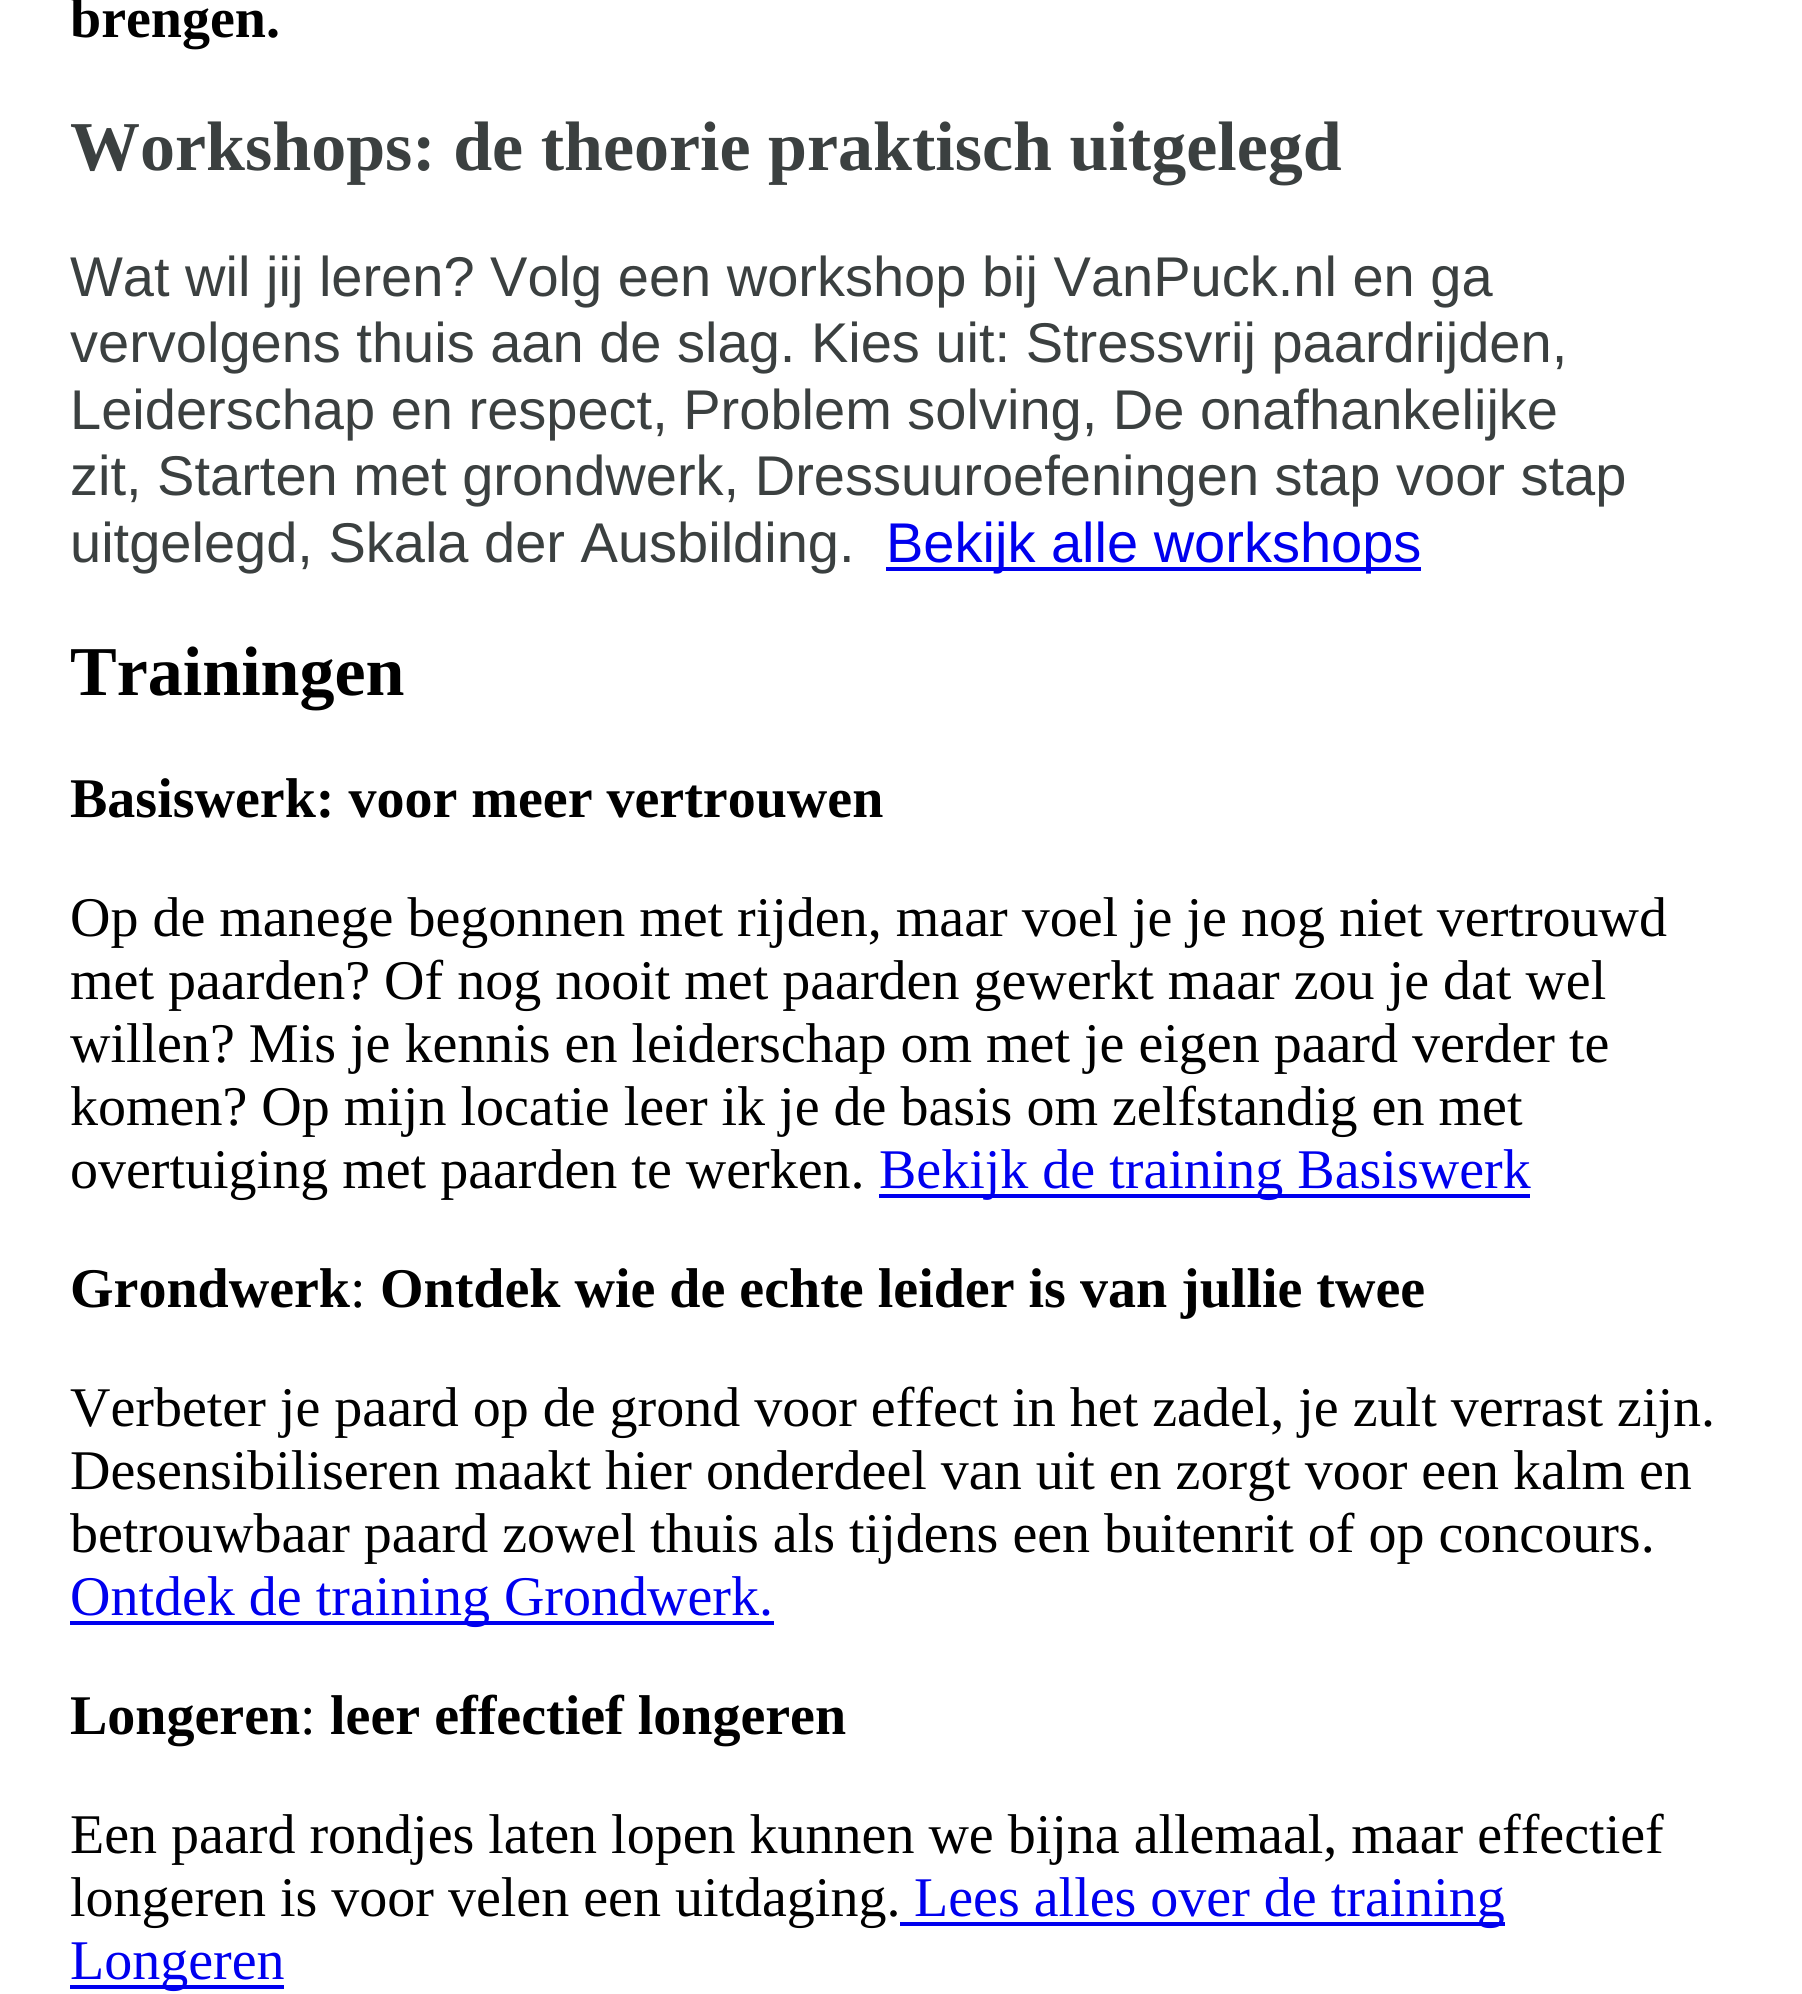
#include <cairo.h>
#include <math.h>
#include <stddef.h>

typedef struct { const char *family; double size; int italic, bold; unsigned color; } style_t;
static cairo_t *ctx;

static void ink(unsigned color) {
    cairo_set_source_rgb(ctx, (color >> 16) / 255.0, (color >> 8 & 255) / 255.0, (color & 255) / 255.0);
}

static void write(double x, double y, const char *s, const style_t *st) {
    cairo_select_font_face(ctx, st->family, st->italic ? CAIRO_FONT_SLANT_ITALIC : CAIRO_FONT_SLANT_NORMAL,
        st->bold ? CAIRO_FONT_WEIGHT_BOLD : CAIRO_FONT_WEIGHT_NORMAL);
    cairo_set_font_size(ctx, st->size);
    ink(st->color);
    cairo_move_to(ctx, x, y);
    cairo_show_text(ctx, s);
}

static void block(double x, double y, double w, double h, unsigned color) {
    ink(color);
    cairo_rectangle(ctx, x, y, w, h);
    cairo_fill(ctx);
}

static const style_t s1 = {"Liberation Serif", 56, 0, 1, 0x000000};
static const style_t s2 = {"Liberation Serif", 70, 0, 1, 0x3b4040};
static const style_t s3 = {"Liberation Sans", 56, 0, 0, 0x3b4040};
static const style_t s4 = {"Liberation Sans", 56, 0, 0, 0x0000ee};
static const style_t s5 = {"Liberation Serif", 70, 0, 1, 0x000000};
static const style_t s6 = {"Liberation Serif", 56, 0, 0, 0x000000};
static const style_t s7 = {"Liberation Serif", 56, 0, 0, 0x0000ee};

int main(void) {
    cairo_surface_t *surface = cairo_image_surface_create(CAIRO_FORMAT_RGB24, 1802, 1994);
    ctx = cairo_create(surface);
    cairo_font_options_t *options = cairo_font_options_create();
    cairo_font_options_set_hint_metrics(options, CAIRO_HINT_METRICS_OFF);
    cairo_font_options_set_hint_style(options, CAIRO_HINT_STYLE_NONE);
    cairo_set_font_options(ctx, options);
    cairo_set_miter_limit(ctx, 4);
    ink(0xffffff);
    cairo_paint(ctx);
    write(70, 37, "brengen.", &s1);
    write(70, 170, "Workshops: de theorie praktisch uitgelegd", &s2);
    write(70, 296, "Wat wil jij leren? Volg een workshop bij VanPuck.nl en ga", &s3);
    write(70, 362, "vervolgens thuis aan de slag. Kies uit: Stressvrij paardrijden,", &s3);
    write(70, 429, "Leiderschap en respect, Problem solving, De onafhankelijke", &s3);
    write(70, 495, "zit, Starten met grondwerk, Dressuuroefeningen stap voor stap", &s3);
    write(70, 562, "uitgelegd, Skala der Ausbilding.", &s3);
    block(886, 567, 535, 4, 0x0000ee);
    write(886, 562, "Bekijk alle workshops", &s4);
    write(70, 695, "Trainingen", &s5);
    write(70, 817, "Basiswerk: voor meer vertrouwen", &s1);
    write(70, 936, "Op de manege begonnen met rijden, maar voel je je nog niet vertrouwd", &s6);
    write(70, 999, "met paarden? Of nog nooit met paarden gewerkt maar zou je dat wel", &s6);
    write(70, 1062, "willen? Mis je kennis en leiderschap om met je eigen paard verder te", &s6);
    write(70, 1125, "komen? Op mijn locatie leer ik je de basis om zelfstandig en met", &s6);
    write(70, 1188, "overtuiging met paarden te werken.", &s6);
    block(879, 1194, 651, 4, 0x0000ee);
    write(879, 1188, "Bekijk de training Basiswerk", &s7);
    write(70, 1307, "Grondwerk", &s1);
    write(350, 1307, ":", &s6);
    write(380, 1307, "Ontdek wie de echte leider is van jullie twee", &s1);
    write(70, 1426, "Verbeter je paard op de grond voor effect in het zadel, je zult verrast zijn.", &s6);
    write(70, 1489, "Desensibiliseren maakt hier onderdeel van uit en zorgt voor een kalm en", &s6);
    write(70, 1552, "betrouwbaar paard zowel thuis als tijdens een buitenrit of op concours.", &s6);
    block(70, 1621, 704, 4, 0x0000ee);
    write(70, 1615, "Ontdek de training Grondwerk.", &s7);
    write(70, 1734, "Longeren", &s1);
    write(300, 1734, ":", &s6);
    write(330, 1734, "leer effectief longeren", &s1);
    write(70, 1853, "Een paard rondjes laten lopen kunnen we bijna allemaal, maar effectief", &s6);
    write(70, 1916, "longeren is voor velen een uitdaging.", &s6);
    block(900, 1922, 605, 4, 0x0000ee);
    write(914, 1916, "Lees alles over de training", &s7);
    block(70, 1985, 214, 4, 0x0000ee);
    write(70, 1979, "Longeren", &s7);
    cairo_surface_write_to_png(surface, "screenshot.png");
    cairo_font_options_destroy(options);
    cairo_destroy(ctx);
    cairo_surface_destroy(surface);
    return 0;
}
